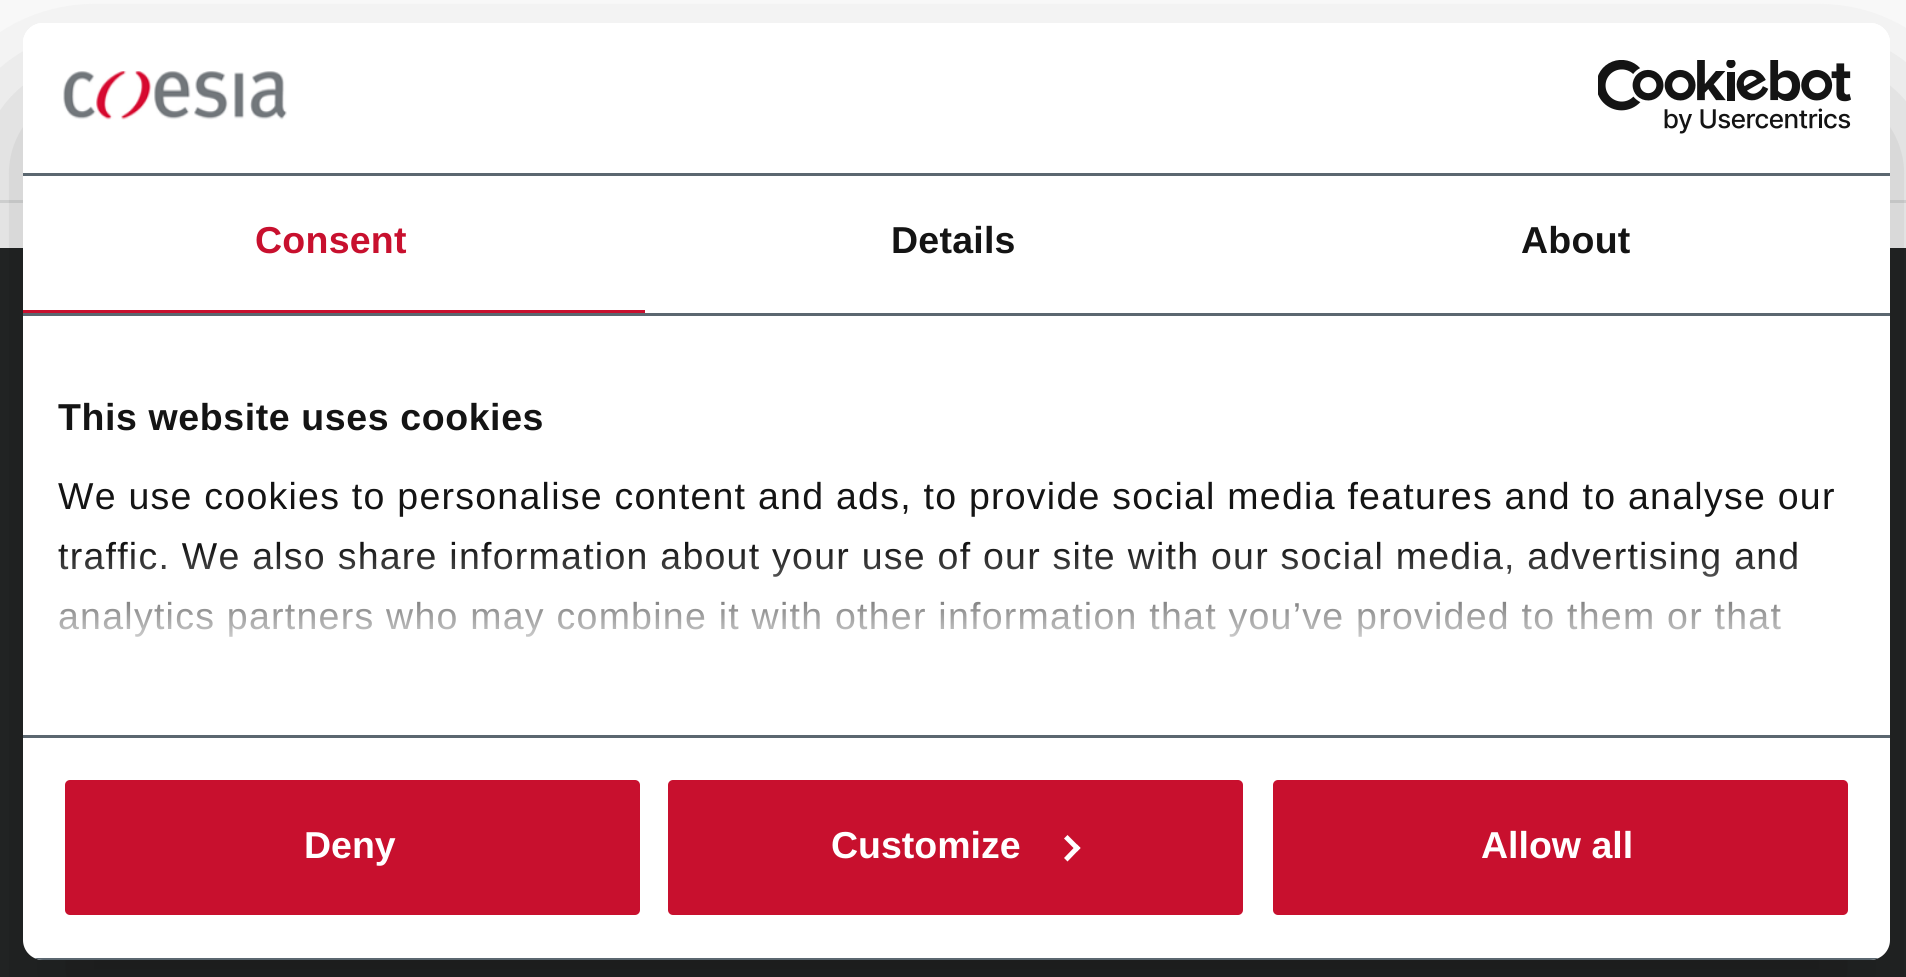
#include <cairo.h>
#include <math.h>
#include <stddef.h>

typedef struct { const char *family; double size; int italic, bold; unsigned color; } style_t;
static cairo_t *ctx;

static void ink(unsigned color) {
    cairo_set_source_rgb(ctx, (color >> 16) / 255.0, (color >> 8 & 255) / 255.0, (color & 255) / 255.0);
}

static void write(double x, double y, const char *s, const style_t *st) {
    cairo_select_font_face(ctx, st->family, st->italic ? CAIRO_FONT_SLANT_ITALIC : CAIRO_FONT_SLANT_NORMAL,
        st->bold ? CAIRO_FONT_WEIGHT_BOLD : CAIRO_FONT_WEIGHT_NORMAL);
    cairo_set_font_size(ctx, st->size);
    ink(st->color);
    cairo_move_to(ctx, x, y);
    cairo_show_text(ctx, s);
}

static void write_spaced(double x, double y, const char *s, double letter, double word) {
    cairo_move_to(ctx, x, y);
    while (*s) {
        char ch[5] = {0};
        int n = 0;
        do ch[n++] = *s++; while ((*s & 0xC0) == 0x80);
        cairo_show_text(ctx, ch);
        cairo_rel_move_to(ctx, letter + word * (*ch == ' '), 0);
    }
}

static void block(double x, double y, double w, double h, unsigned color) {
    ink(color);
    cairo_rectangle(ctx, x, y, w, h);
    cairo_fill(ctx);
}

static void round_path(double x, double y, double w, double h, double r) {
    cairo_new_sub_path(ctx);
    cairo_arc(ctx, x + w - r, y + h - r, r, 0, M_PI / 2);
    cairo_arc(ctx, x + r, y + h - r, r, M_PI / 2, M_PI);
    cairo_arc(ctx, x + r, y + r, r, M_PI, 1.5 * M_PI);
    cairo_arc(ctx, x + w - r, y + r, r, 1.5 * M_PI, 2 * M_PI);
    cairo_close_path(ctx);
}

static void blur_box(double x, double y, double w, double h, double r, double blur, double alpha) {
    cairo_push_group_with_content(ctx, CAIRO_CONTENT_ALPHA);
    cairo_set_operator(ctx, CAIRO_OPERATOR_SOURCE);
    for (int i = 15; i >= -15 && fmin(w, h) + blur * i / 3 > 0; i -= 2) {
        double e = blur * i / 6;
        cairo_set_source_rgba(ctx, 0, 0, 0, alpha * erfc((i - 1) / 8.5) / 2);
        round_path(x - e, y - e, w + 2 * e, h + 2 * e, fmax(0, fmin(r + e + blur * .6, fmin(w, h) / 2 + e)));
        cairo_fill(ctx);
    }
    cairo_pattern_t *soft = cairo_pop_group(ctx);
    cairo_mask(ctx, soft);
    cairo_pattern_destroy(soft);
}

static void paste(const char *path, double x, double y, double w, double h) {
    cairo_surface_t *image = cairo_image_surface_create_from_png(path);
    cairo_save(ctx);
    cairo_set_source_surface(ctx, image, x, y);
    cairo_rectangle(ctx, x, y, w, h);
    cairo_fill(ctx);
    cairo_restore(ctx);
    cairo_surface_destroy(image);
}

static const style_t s1 = {"Liberation Sans", 37.5, 0, 1, 0xffffff};

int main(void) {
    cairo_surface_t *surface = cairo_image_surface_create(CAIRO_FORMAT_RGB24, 1906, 977);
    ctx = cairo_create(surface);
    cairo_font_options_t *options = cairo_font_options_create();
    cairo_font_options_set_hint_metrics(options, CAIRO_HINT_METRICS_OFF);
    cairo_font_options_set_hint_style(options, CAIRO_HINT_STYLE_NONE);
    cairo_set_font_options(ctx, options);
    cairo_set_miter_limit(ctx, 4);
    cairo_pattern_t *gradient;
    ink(0xffffff);
    cairo_paint(ctx);
    block(0, 200, 1906, 3, 0xe6e7e7);
    block(0, 248, 1906, 729, 0x252727);
    cairo_save(ctx);
    cairo_set_fill_rule(ctx, CAIRO_FILL_RULE_EVEN_ODD);
    cairo_new_path(ctx);
    cairo_move_to(ctx, 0, 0);
    cairo_line_to(ctx, 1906, 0);
    cairo_line_to(ctx, 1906, 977);
    cairo_line_to(ctx, 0, 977);
    cairo_close_path(ctx);
    cairo_move_to(ctx, 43, 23);
    cairo_line_to(ctx, 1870, 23);
    cairo_curve_to(ctx, 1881, 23, 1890, 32, 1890, 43);
    cairo_line_to(ctx, 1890, 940);
    cairo_curve_to(ctx, 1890, 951, 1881, 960, 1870, 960);
    cairo_line_to(ctx, 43, 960);
    cairo_curve_to(ctx, 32, 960, 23, 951, 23, 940);
    cairo_line_to(ctx, 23, 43);
    cairo_curve_to(ctx, 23, 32, 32, 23, 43, 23);
    cairo_close_path(ctx);
    cairo_clip(ctx);
    ink(0x000000);
    blur_box(23, 103, 1867, 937, 20, 85, 0.3);
    cairo_restore(ctx);
    ink(0xffffff);
    round_path(23, 23, 1867, 937, 20);
    cairo_fill(ctx);
    block(23, 173, 1867, 3, 0x5b6770);
    paste("pic1.png", 63, 71, 224, 49);
    paste("pic2.png", 1598, 60, 253, 74);
    block(23, 313, 1867, 3, 0x5b6770);
    block(23, 310, 622, 3, 0xc8102e);
    cairo_select_font_face(ctx, "Liberation Sans", CAIRO_FONT_SLANT_NORMAL, CAIRO_FONT_WEIGHT_BOLD);
    cairo_set_font_size(ctx, 37.5);
    write_spaced(255, 253, "Consent", 0.25, 0);
    ink(0x141414);
    write_spaced(891, 253, "Details", 0.25, 0);
    write_spaced(1521, 253, "About", 0.25, 0);
    block(23, 735, 1867, 3, 0x5b6770);
    ink(0x141414);
    write_spaced(58, 430, "This website uses cookies", 0.6, 0);
    cairo_select_font_face(ctx, "Liberation Sans", CAIRO_FONT_SLANT_NORMAL, CAIRO_FONT_WEIGHT_NORMAL);
    write_spaced(58, 509, "We use cookies to personalise content and ads, to provide social media features and to analyse our", 1.25, 0);
    write_spaced(58, 569, "traffic. We also share information about your use of our site with our social media, advertising and", 1.25, 0);
    write_spaced(58, 629, "analytics partners who may combine it with other information that you’ve provided to them or that", 1.25, 0);
    gradient = cairo_pattern_create_linear(939, 734, 939, 546);
    cairo_pattern_add_color_stop_rgba(gradient, 0, 1, 1, 1, 1);
    cairo_pattern_add_color_stop_rgba(gradient, 0.5, 1, 1, 1, 0.8);
    cairo_pattern_add_color_stop_rgba(gradient, 1, 1, 1, 1, 0);
    cairo_set_source(ctx, gradient);
    cairo_pattern_destroy(gradient);
    cairo_rectangle(ctx, 58, 549, 1739, 88);
    cairo_fill(ctx);
    cairo_save(ctx);
    round_path(23, 23, 1867, 937, 20);
    cairo_clip(ctx);
    block(34, 958, 1845, 2, 0x5b6770);
    cairo_restore(ctx);
    ink(0xc8102e);
    round_path(62.5, 777.5, 580, 140, 7.5);
    cairo_fill_preserve(ctx);
    ink(0xffffff);
    cairo_set_line_width(ctx, 5);
    cairo_stroke(ctx);
    write(304, 858, "Deny", &s1);
    ink(0xc8102e);
    round_path(665.5, 777.5, 580, 140, 7.5);
    cairo_fill_preserve(ctx);
    ink(0xffffff);
    cairo_stroke(ctx);
    write(831, 858, "Customize", &s1);
    cairo_new_path(ctx);
    cairo_move_to(ctx, 1067.5, 835);
    cairo_line_to(ctx, 1080.5, 848);
    cairo_line_to(ctx, 1077, 851.5);
    cairo_line_to(ctx, 1064, 838.5);
    cairo_close_path(ctx);
    cairo_fill(ctx);
    cairo_new_path(ctx);
    cairo_move_to(ctx, 1077, 844.5);
    cairo_line_to(ctx, 1080.5, 848);
    cairo_line_to(ctx, 1067.5, 861.5);
    cairo_line_to(ctx, 1064, 858);
    cairo_close_path(ctx);
    cairo_fill(ctx);
    ink(0xc8102e);
    round_path(1270.5, 777.5, 580, 140, 7.5);
    cairo_fill_preserve(ctx);
    ink(0xffffff);
    cairo_stroke(ctx);
    write(1481, 858, "Allow all", &s1);
    cairo_surface_write_to_png(surface, "screenshot.png");
    cairo_font_options_destroy(options);
    cairo_destroy(ctx);
    cairo_surface_destroy(surface);
    return 0;
}
